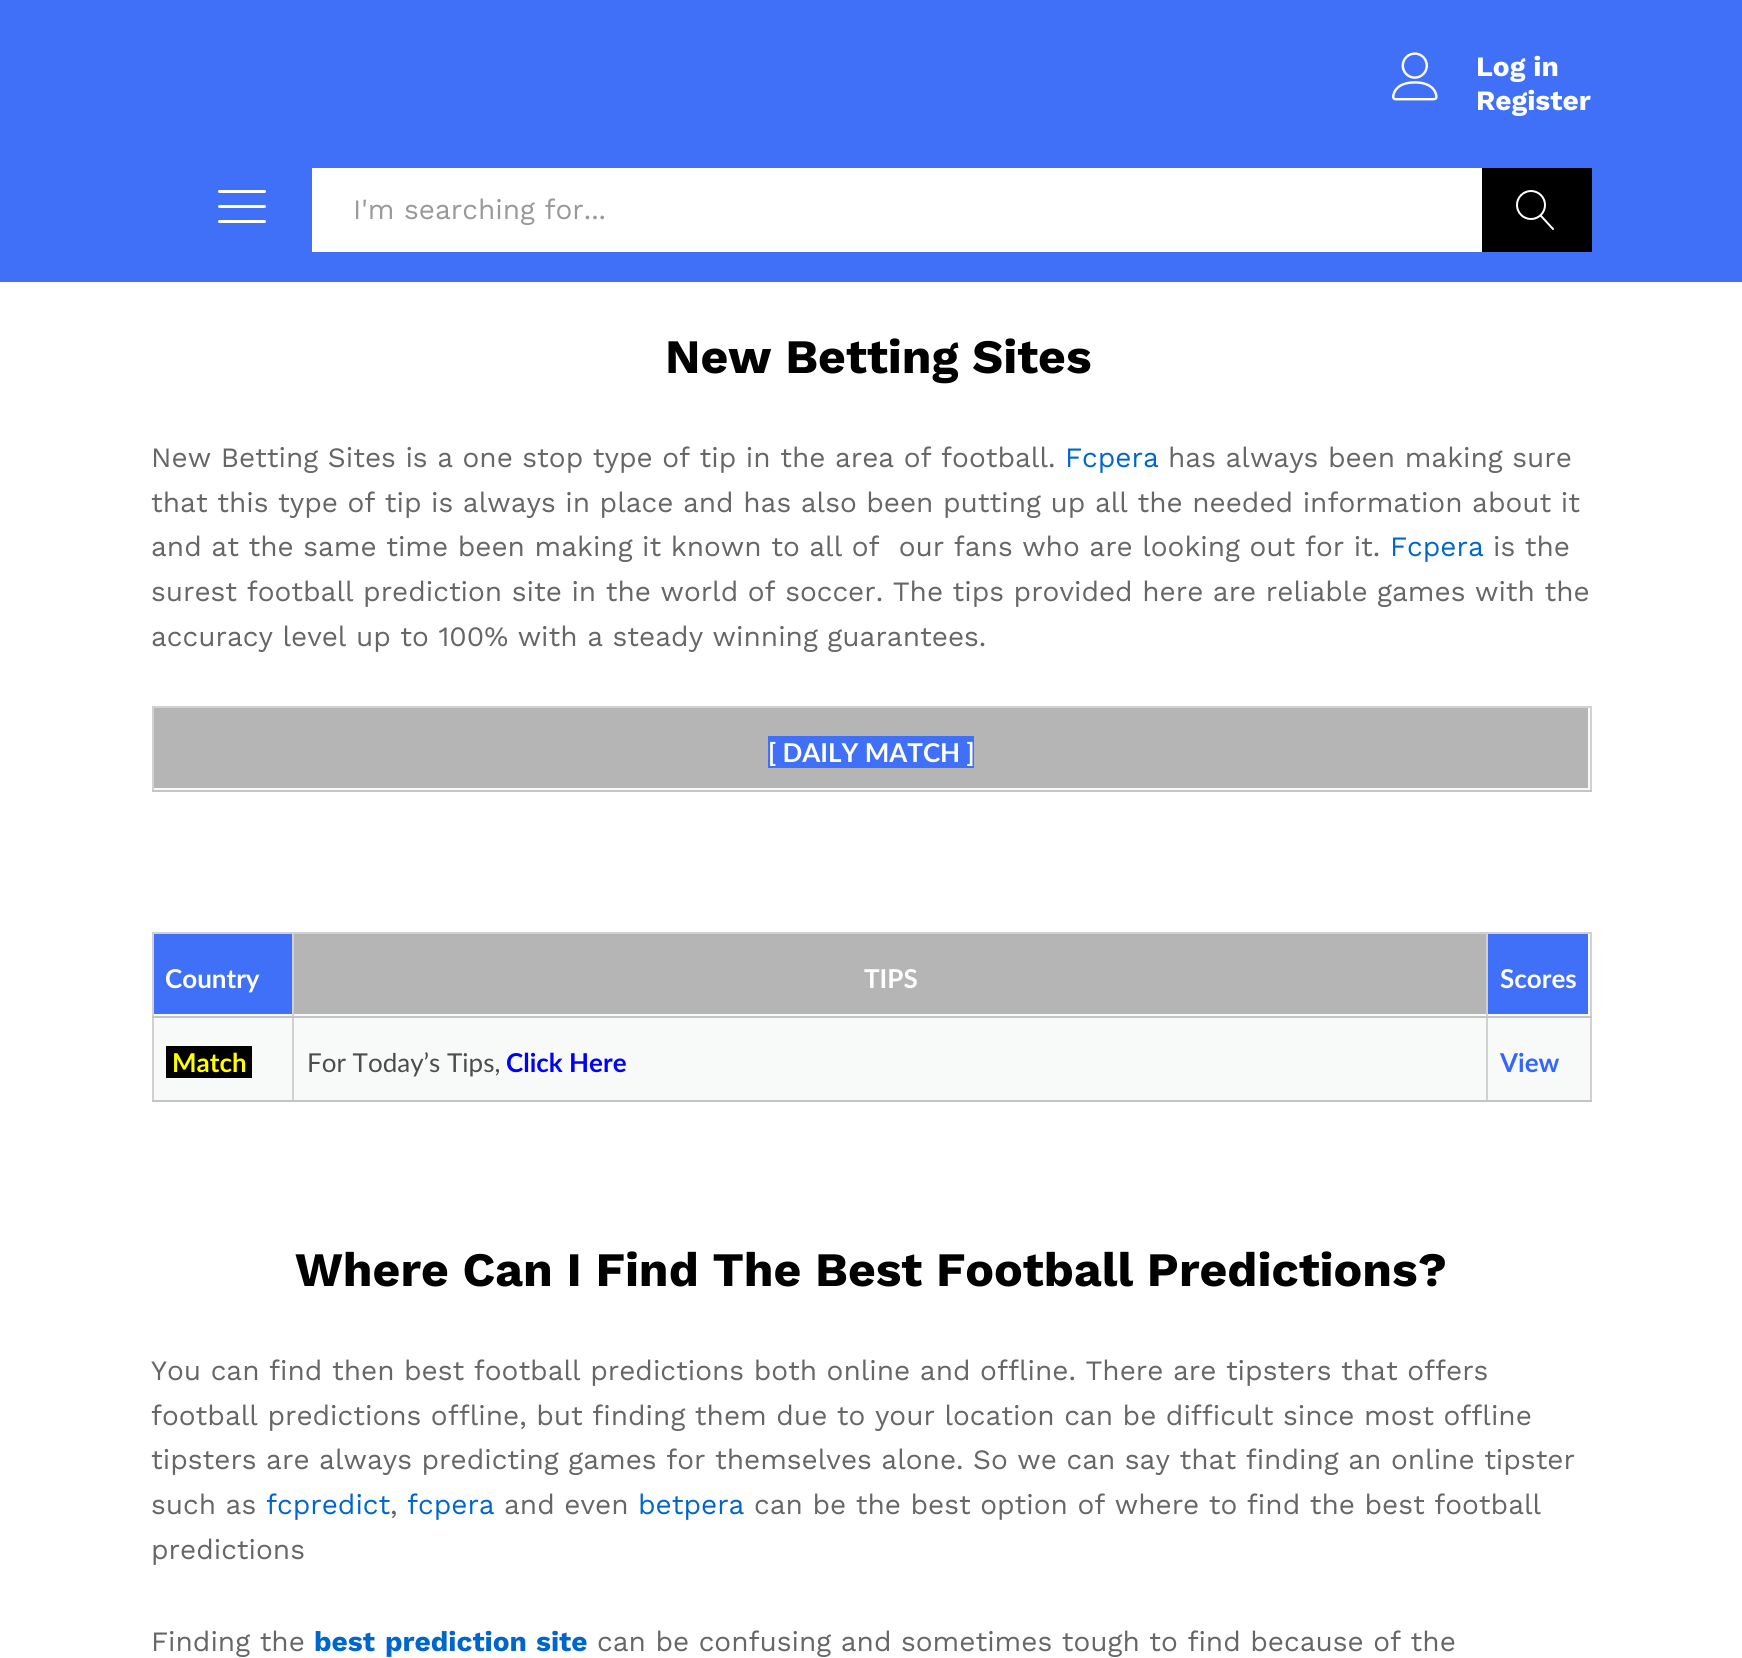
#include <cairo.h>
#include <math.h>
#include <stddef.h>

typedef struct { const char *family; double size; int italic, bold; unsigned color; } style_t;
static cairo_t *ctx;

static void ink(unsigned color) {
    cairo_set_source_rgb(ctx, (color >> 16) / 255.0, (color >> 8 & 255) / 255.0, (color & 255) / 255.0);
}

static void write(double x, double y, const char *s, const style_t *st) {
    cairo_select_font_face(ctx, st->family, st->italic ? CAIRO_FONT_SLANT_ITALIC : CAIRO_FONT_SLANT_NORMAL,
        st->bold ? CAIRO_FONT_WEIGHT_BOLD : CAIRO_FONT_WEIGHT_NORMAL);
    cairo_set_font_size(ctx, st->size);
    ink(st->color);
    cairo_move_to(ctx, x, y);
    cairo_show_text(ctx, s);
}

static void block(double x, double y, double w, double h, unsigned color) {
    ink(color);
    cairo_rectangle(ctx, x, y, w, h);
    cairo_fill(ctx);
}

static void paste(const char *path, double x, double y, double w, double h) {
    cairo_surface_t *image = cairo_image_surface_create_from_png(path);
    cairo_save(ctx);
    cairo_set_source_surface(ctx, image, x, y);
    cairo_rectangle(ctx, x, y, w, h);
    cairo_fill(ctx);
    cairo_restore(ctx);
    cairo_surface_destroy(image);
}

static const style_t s1 = {"Work Sans", 28, 0, 1, 0xffffff};
static const style_t s2 = {"Work Sans", 28, 0, 0, 0x999999};
static const style_t s3 = {"Work Sans", 48, 0, 1, 0x000000};
static const style_t s4 = {"Work Sans", 28, 0, 0, 0x666666};
static const style_t s5 = {"Work Sans", 28, 0, 0, 0x0066cc};
static const style_t s6 = {"Lato", 26, 0, 1, 0xffffff};
static const style_t s7 = {"Lato", 26, 0, 1, 0xffff00};
static const style_t s8 = {"Lato", 26, 0, 0, 0x4c4c4c};
static const style_t s9 = {"Lato", 26, 0, 1, 0x0000ff};
static const style_t s10 = {"Lato", 26, 0, 1, 0x3366ff};
static const style_t s11 = {"Work Sans", 28, 0, 1, 0x0066cc};

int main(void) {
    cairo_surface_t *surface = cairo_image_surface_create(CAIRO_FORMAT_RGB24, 1742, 1658);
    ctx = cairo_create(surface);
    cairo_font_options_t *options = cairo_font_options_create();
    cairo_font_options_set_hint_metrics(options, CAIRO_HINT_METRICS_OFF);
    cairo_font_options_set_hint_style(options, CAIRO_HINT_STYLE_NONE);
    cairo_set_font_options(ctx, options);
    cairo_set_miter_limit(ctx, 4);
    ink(0xffffff);
    cairo_paint(ctx);
    block(0, 0, 1742, 282, 0x4070f7);
    paste("pic1.png", 1392, 52, 46, 49);
    write(1476, 76, "Log in", &s1);
    write(1476, 110, "Register", &s1);
    paste("pic2.png", 218, 190, 48, 33);
    block(312, 168, 1170, 84, 0xffffff);
    write(353, 219, "I'm searching for...", &s2);
    block(1482, 168, 110, 84, 0x000000);
    paste("pic3.png", 1516, 190, 38, 40);
    write(665, 373, "New Betting Sites", &s3);
    write(151, 467, "New Betting Sites is a one stop type of tip in the area of football.", &s4);
    write(1065, 467, "Fcpera", &s5);
    write(1168, 467, "has always been making sure", &s4);
    write(151, 512, "that this type of tip is always in place and has also been putting up all the needed information about it", &s4);
    write(151, 556, "and at the same time been making it known to all of  our fans who are looking out for it.", &s4);
    write(1390, 556, "Fcpera", &s5);
    write(1493, 556, "is the", &s4);
    write(151, 601, "surest football prediction site in the world of soccer. The tips provided here are reliable games with the", &s4);
    write(151, 646, "accuracy level up to 100% with a steady winning guarantees.", &s4);
    block(154, 708, 1436, 82, 0xf8f9f9);
    block(152, 706, 1440, 2, 0xd1d1d1);
    block(1590, 706, 2, 86, 0xd1d1d1);
    block(152, 706, 2, 86, 0xd1d1d1);
    block(154, 708, 1434, 80, 0xb5b5b5);
    block(152, 790, 1440, 2, 0xc5c5c5);
    block(768, 736, 206, 32, 0x4070f7);
    write(768, 762, "[ DAILY MATCH ]", &s6);
    block(154, 934, 1436, 166, 0xf8f9f9);
    block(152, 932, 1440, 2, 0xd1d1d1);
    block(1590, 932, 2, 170, 0xd1d1d1);
    block(152, 932, 2, 170, 0xd1d1d1);
    block(154, 934, 138, 80, 0x4070f7);
    block(1486, 1100, 106, 2, 0xc5c5c5);
    block(1486, 1016, 2, 86, 0xd1d1d1);
    block(1486, 1016, 106, 2, 0xc5c5c5);
    block(1486, 932, 2, 86, 0xd1d1d1);
    block(292, 1100, 1196, 2, 0xc5c5c5);
    block(292, 1016, 2, 86, 0xd1d1d1);
    block(292, 1016, 1196, 2, 0xc5c5c5);
    block(292, 932, 2, 86, 0xd1d1d1);
    block(152, 1016, 142, 2, 0xc5c5c5);
    write(165, 988, "Country", &s6);
    block(294, 934, 1192, 80, 0xb5b5b5);
    write(864, 988, "TIPS", &s6);
    block(1488, 934, 100, 80, 0x4070f7);
    write(1500, 988, "Scores", &s6);
    block(152, 1100, 142, 2, 0xc5c5c5);
    block(166, 1046, 86, 32, 0x000000);
    write(172, 1072, "Match", &s7);
    write(307, 1072, "For Today’s Tips,", &s8);
    write(506, 1072, "Click Here", &s9);
    write(1500, 1072, "View", &s10);
    write(295, 1286, "Where Can I Find The Best Football Predictions?", &s3);
    write(151, 1380, "You can find then best football predictions both online and offline. There are tipsters that offers", &s4);
    write(151, 1425, "football predictions offline, but finding them due to your location can be difficult since most offline", &s4);
    write(151, 1469, "tipsters are always predicting games for themselves alone. So we can say that finding an online tipster", &s4);
    write(151, 1514, "such as", &s4);
    write(266, 1514, "fcpredict", &s5);
    write(390, 1514, ",", &s4);
    write(407, 1514, "fcpera", &s5);
    write(504, 1514, "and even", &s4);
    write(638, 1514, "betpera", &s5);
    write(754, 1514, "can be the best option of where to find the best football", &s4);
    write(151, 1559, "predictions", &s4);
    write(151, 1651, "Finding the", &s4);
    write(314, 1651, "best", &s11);
    write(385, 1651, "prediction", &s11);
    write(536, 1651, "site", &s11);
    write(597, 1651, "can be confusing and sometimes tough to find because of the", &s4);
    cairo_surface_write_to_png(surface, "screenshot.png");
    cairo_font_options_destroy(options);
    cairo_destroy(ctx);
    cairo_surface_destroy(surface);
    return 0;
}
